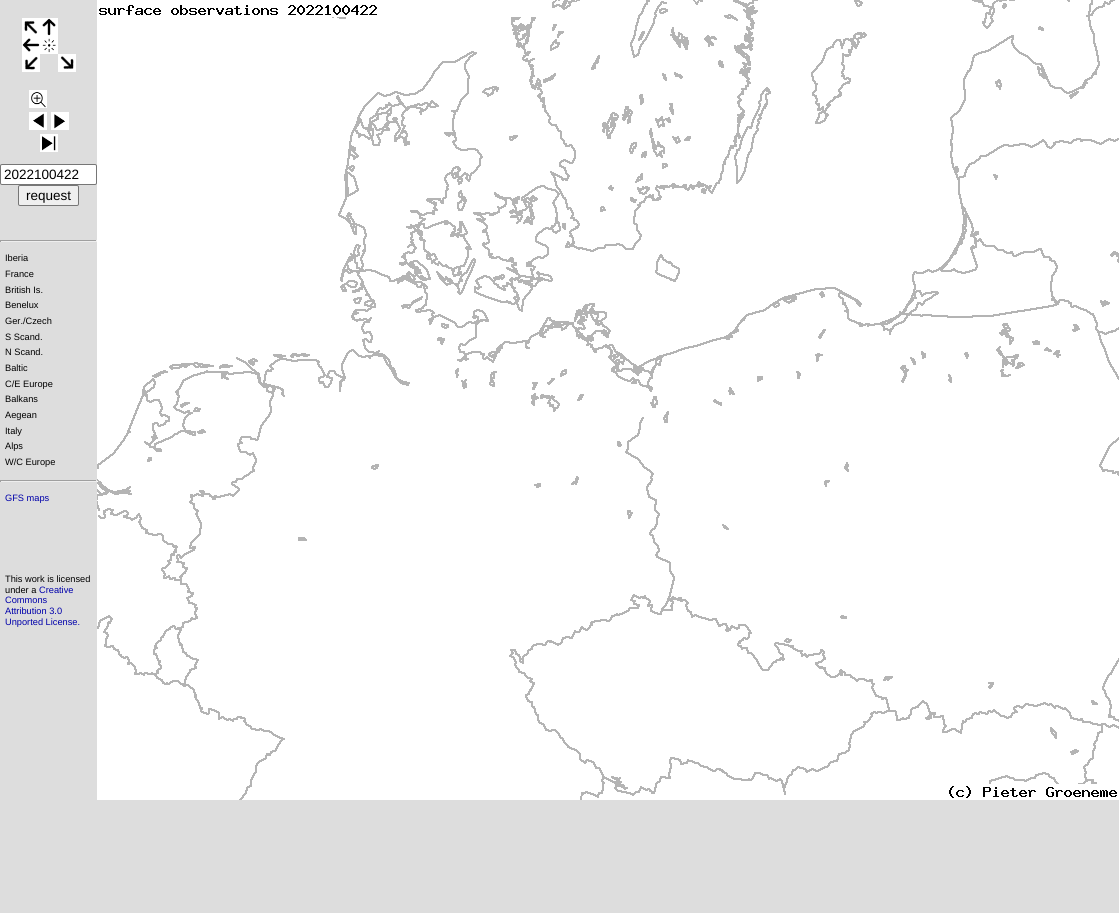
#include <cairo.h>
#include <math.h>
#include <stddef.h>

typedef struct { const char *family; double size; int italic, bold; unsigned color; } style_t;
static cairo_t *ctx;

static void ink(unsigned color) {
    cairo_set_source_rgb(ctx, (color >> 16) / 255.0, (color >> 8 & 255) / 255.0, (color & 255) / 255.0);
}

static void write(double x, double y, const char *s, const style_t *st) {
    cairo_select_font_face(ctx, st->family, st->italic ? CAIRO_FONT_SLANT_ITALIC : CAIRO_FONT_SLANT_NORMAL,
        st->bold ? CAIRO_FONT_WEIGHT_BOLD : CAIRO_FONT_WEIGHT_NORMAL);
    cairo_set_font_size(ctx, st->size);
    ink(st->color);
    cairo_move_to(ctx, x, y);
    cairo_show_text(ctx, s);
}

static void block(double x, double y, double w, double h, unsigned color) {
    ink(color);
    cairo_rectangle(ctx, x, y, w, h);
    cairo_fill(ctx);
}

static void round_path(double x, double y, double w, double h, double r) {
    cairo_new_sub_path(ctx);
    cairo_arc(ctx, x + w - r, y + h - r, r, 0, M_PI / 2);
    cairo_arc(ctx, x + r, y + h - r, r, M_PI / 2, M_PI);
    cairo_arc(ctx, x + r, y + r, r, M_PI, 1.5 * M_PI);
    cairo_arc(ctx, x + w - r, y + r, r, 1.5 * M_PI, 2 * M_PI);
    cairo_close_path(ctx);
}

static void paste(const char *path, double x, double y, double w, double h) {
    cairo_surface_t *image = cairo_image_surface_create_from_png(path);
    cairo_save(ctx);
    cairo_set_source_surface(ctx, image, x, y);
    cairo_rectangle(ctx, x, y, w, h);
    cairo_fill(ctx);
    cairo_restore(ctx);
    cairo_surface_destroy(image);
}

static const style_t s1 = {"Liberation Sans", 13.5, 0, 0, 0x000000};
static const style_t s2 = {"Liberation Sans", 9.25, 0, 0, 0x000000};
static const style_t s3 = {"Liberation Sans", 9.25, 0, 0, 0x0000aa};

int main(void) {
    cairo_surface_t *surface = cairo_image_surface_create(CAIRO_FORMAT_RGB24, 1119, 913);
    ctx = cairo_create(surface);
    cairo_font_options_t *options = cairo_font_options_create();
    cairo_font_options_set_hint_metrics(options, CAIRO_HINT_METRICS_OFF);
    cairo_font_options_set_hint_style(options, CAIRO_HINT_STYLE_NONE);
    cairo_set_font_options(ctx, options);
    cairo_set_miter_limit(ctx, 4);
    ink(0xdddddd);
    cairo_paint(ctx);
    paste("pic1.png", 22, 18, 18, 18);
    paste("pic2.png", 40, 18, 18, 18);
    paste("pic3.png", 22, 36, 18, 18);
    paste("pic4.png", 40, 36, 18, 18);
    paste("pic5.png", 22, 54, 18, 18);
    paste("pic6.png", 58, 54, 18, 18);
    paste("pic7.png", 29, 90, 18, 18);
    paste("pic8.png", 29, 112, 18, 18);
    paste("pic9.png", 51, 112, 18, 18);
    paste("pic10.png", 40, 134, 18, 18);
    ink(0xffffff);
    round_path(0.5, 164.5, 96, 20, 1.5);
    cairo_fill_preserve(ctx);
    ink(0x767676);
    cairo_set_line_width(ctx, 1);
    cairo_stroke(ctx);
    write(4, 179, "2022100422", &s1);
    ink(0xefefef);
    round_path(18.5, 185.5, 60, 20, 1.5);
    cairo_fill_preserve(ctx);
    ink(0x767676);
    cairo_stroke(ctx);
    write(26, 200, "request", &s1);
    block(0, 240, 97, 1, 0x9f9f9f);
    block(96, 240, 1, 2, 0xeeeeee);
    block(0, 241, 97, 1, 0xeeeeee);
    block(0, 240, 1, 2, 0x9f9f9f);
    write(5, 261, "Iberia", &s2);
    write(5, 277, "France", &s2);
    write(5, 293, "British Is.", &s2);
    write(5, 308, "Benelux", &s2);
    write(5, 324, "Ger./Czech", &s2);
    write(5, 340, "S Scand.", &s2);
    write(5, 355, "N Scand.", &s2);
    write(5, 371, "Baltic", &s2);
    write(5, 387, "C/E Europe", &s2);
    write(5, 402, "Balkans", &s2);
    write(5, 418, "Aegean", &s2);
    write(5, 434, "Italy", &s2);
    write(5, 449, "Alps", &s2);
    write(5, 465, "W/C Europe", &s2);
    block(0, 480, 97, 1, 0x9f9f9f);
    block(96, 480, 1, 2, 0xeeeeee);
    block(0, 481, 97, 1, 0xeeeeee);
    block(0, 480, 1, 2, 0x9f9f9f);
    write(5, 501, "GFS maps", &s3);
    write(5, 582, "This work is licensed", &s2);
    write(5, 593, "under a", &s2);
    write(39, 593, "Creative", &s3);
    write(5, 603, "Commons", &s3);
    write(5, 614, "Attribution 3.0", &s3);
    write(5, 625, "Unported License.", &s3);
    paste("pic11.png", 97, 0, 1022, 800);
    cairo_surface_write_to_png(surface, "screenshot.png");
    cairo_font_options_destroy(options);
    cairo_destroy(ctx);
    cairo_surface_destroy(surface);
    return 0;
}
